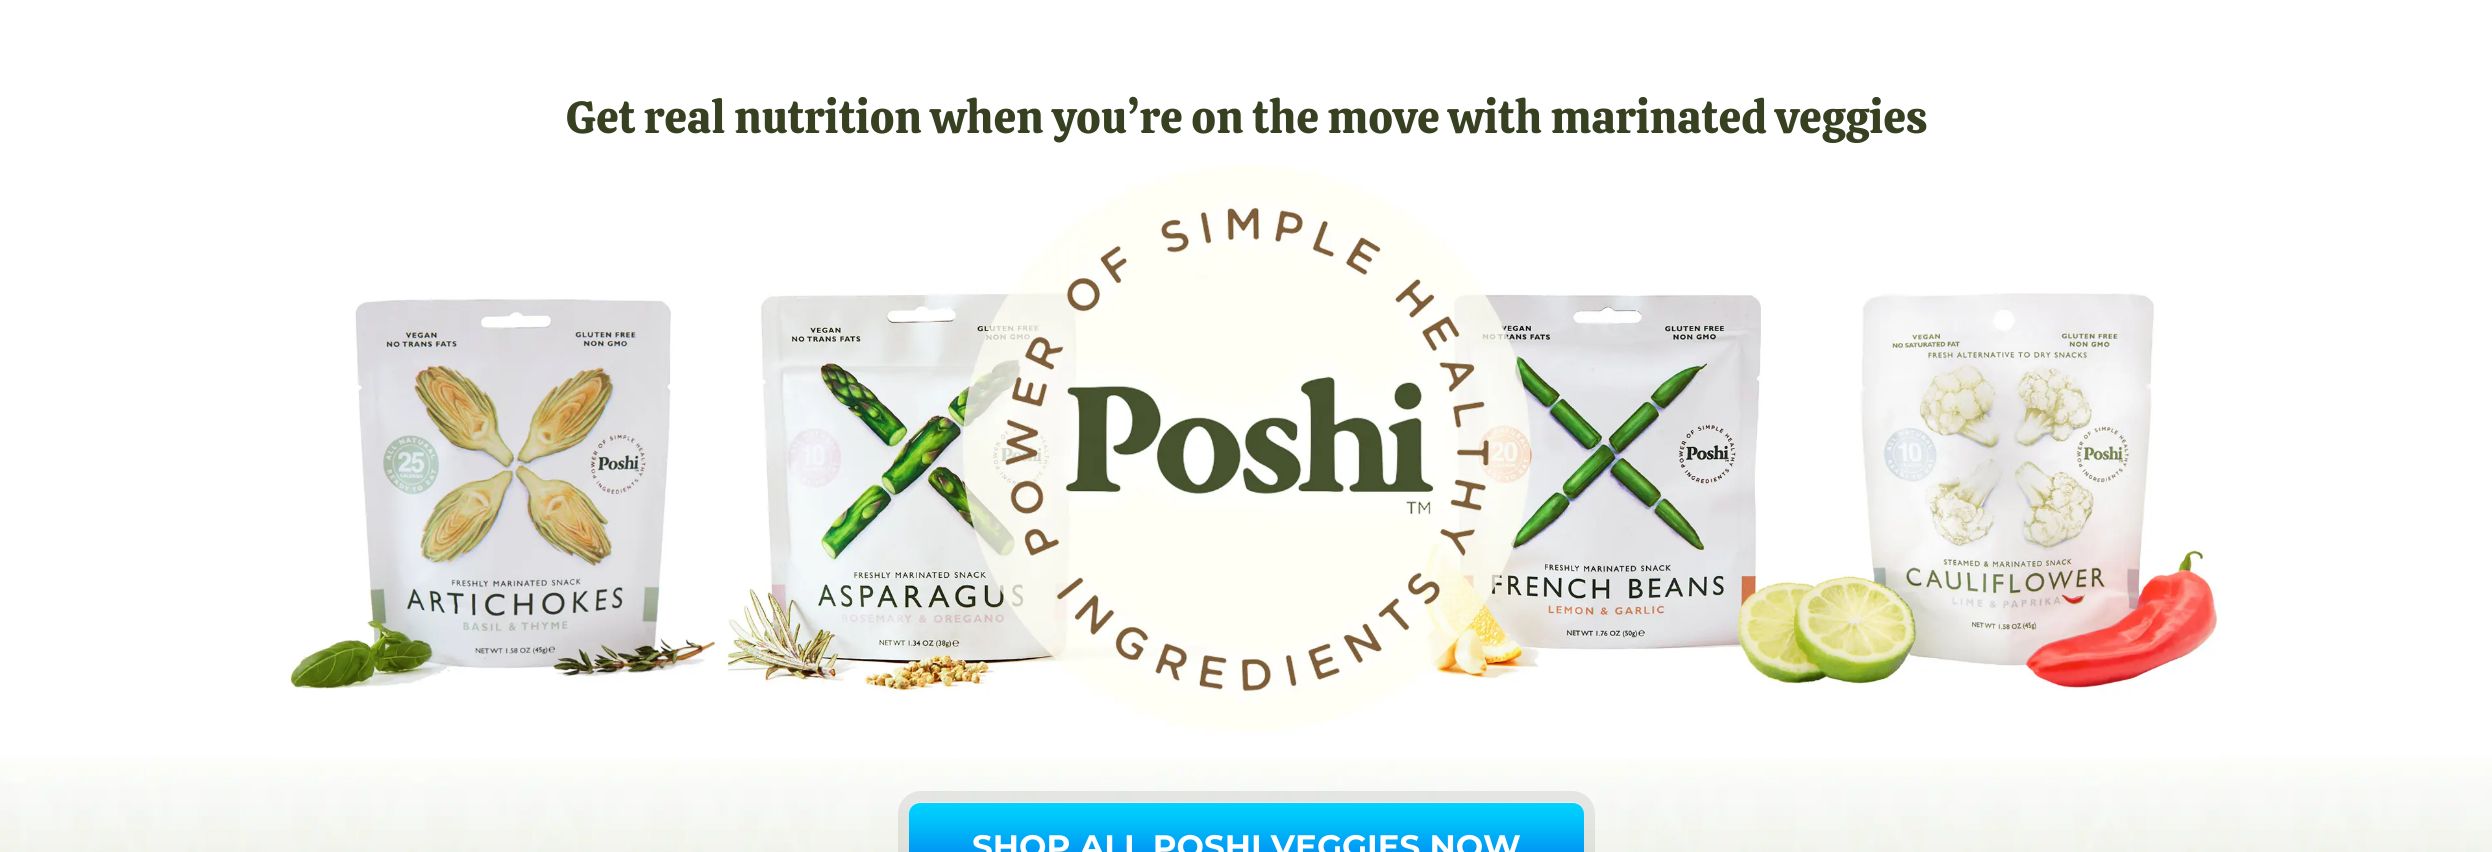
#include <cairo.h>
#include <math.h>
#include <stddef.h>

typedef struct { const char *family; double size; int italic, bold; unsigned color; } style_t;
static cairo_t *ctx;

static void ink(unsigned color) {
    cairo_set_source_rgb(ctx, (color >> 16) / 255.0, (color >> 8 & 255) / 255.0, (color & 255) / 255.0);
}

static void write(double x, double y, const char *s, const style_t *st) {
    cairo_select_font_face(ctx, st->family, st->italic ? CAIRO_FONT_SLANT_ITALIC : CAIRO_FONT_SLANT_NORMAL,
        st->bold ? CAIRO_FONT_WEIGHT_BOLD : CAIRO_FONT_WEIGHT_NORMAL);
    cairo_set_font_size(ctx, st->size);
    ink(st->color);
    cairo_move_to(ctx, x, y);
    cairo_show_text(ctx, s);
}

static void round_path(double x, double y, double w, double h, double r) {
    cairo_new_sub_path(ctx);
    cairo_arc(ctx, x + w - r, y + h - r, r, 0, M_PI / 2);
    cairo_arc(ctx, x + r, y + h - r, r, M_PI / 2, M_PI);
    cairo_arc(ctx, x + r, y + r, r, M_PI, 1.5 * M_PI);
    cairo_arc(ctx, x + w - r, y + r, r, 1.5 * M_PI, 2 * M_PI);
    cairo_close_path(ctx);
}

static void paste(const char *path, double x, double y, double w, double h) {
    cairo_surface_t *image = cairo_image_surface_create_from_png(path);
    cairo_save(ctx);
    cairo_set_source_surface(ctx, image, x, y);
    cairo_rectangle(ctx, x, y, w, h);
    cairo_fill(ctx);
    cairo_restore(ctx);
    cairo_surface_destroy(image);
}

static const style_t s1 = {"Calistoga", 45, 0, 0, 0x374121};
static const style_t s2 = {"Montserrat", 32.5, 0, 1, 0xffffff};

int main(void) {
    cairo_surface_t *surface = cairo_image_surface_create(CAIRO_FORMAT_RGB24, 2492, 852);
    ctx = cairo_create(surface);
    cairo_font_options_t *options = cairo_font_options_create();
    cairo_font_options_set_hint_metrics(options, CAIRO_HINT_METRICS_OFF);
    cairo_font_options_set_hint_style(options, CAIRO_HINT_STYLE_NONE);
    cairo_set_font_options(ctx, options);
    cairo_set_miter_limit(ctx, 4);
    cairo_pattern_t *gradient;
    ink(0xffffff);
    cairo_paint(ctx);
    paste("pic1.png", 0, 756, 2492, 96);
    write(566, 133, "Get real nutrition when you’re on the move with marinated veggies", &s1);
    paste("pic2.png", 273, 165, 1945, 594);
    round_path(903.5, 796.5, 686, 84, 17.5);
    cairo_set_source_rgba(ctx, 0, 0, 0, 0.08);
    cairo_set_line_width(ctx, 11);
    cairo_stroke(ctx);
    gradient = cairo_pattern_create_linear(1246, 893, 1246, 803);
    cairo_pattern_add_color_stop_rgba(gradient, 0, 0.004, 0.373, 0.918, 1);
    cairo_pattern_add_color_stop_rgba(gradient, 0.78, 0, 0.753, 0.98, 1);
    cairo_pattern_add_color_stop_rgba(gradient, 1, 0, 0.831, 1, 1);
    cairo_set_source(ctx, gradient);
    cairo_pattern_destroy(gradient);
    round_path(909, 803, 675, 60, 11);
    cairo_fill(ctx);
    write(972, 858, "SHOP ALL POSHI VEGGIES NOW", &s2);
    cairo_surface_write_to_png(surface, "screenshot.png");
    cairo_font_options_destroy(options);
    cairo_destroy(ctx);
    cairo_surface_destroy(surface);
    return 0;
}
